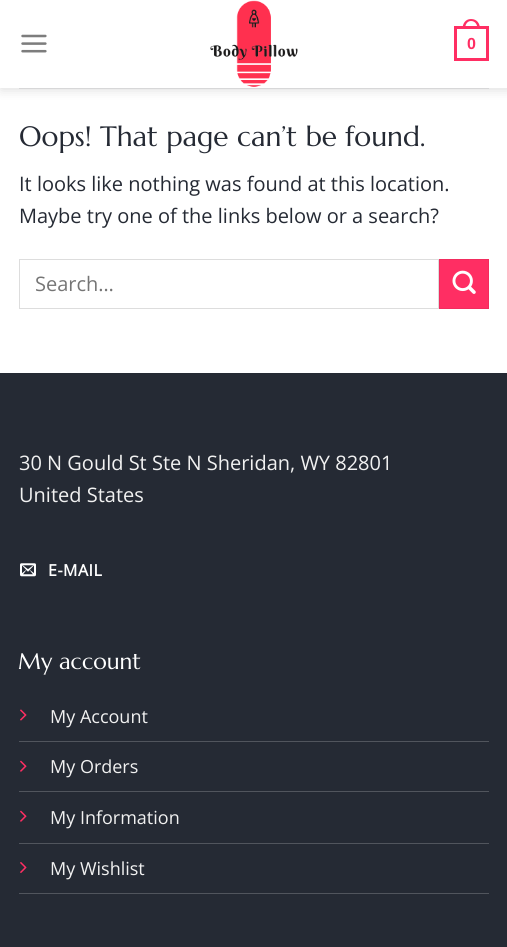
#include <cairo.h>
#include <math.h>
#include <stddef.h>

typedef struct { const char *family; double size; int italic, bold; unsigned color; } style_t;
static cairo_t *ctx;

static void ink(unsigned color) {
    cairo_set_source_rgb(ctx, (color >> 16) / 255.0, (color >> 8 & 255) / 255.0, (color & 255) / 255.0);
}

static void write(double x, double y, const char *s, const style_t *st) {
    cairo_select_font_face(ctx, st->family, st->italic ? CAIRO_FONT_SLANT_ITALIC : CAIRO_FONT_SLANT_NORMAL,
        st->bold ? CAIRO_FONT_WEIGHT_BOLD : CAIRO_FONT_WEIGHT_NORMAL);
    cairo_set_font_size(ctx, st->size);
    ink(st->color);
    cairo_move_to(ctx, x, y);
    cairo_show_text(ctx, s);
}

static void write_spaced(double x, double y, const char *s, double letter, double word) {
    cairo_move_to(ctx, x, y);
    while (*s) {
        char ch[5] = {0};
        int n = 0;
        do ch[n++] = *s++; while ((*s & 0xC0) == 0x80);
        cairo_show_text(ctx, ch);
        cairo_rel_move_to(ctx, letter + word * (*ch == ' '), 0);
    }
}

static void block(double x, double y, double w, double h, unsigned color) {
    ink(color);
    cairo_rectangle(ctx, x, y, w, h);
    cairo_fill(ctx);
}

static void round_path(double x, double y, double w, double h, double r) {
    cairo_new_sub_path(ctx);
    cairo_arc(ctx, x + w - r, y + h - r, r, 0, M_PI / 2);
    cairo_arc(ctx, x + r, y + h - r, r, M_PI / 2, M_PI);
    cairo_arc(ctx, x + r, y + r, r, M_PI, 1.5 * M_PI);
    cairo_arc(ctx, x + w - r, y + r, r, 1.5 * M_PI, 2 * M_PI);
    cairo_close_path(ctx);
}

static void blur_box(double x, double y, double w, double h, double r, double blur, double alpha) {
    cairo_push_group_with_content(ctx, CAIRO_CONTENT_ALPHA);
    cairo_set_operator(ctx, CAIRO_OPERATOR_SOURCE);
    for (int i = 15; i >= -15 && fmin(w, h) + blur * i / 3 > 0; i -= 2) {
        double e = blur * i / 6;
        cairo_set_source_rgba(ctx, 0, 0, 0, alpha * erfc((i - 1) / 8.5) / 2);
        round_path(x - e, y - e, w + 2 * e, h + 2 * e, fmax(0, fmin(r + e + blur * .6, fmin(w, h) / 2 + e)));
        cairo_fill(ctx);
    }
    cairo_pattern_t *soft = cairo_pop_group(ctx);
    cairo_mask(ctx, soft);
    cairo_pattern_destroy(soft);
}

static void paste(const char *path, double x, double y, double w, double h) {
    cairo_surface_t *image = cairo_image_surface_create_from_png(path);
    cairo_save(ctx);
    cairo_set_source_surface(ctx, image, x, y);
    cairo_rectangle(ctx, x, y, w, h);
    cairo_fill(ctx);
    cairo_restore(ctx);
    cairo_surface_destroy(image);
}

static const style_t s1 = {"Liberation Sans", 16, 0, 1, 0xff2e63};
static const style_t s2 = {"Marcellus", 28, 0, 0, 0x252a34};
static const style_t s3 = {"Open Sans", 20, 0, 0, 0x252a34};
static const style_t s4 = {"Open Sans", 20, 0, 0, 0x757575};
static const style_t s5 = {"Open Sans", 20, 0, 0, 0xf1f1f1};
static const style_t s6 = {"Marcellus", 22.5, 0, 0, 0xffffff};
static const style_t s7 = {"Open Sans", 18, 0, 0, 0xf1f1f1};

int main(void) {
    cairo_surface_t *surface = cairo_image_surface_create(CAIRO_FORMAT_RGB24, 507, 947);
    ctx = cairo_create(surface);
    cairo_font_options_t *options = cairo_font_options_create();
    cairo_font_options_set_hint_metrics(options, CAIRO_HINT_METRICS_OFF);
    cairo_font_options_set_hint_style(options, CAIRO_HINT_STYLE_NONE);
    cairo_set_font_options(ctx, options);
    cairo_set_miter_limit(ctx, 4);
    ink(0xffffff);
    cairo_paint(ctx);
    cairo_save(ctx);
    cairo_set_fill_rule(ctx, CAIRO_FILL_RULE_EVEN_ODD);
    cairo_new_path(ctx);
    cairo_move_to(ctx, 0, 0);
    cairo_line_to(ctx, 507, 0);
    cairo_line_to(ctx, 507, 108);
    cairo_line_to(ctx, 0, 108);
    cairo_close_path(ctx);
    cairo_move_to(ctx, 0, 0);
    cairo_line_to(ctx, 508, 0);
    cairo_line_to(ctx, 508, 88);
    cairo_line_to(ctx, 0, 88);
    cairo_close_path(ctx);
    cairo_clip(ctx);
    ink(0x000000);
    blur_box(1, 1, 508, 88, 0, 6, 0.15);
    cairo_restore(ctx);
    paste("pic1.png", 21, 34, 26, 19);
    paste("pic2.png", 210, 0, 88, 87);
    cairo_rectangle(ctx, 455.5, 27.5, 32, 32);
    ink(0xff2e63);
    cairo_set_line_width(ctx, 3);
    cairo_stroke(ctx);
    cairo_set_fill_rule(ctx, CAIRO_FILL_RULE_EVEN_ODD);
    cairo_new_path(ctx);
    cairo_move_to(ctx, 471, 19);
    cairo_curve_to(ctx, 477, 19, 480, 23.5, 480, 29);
    cairo_line_to(ctx, 462.5, 29);
    cairo_curve_to(ctx, 462.5, 23.5, 465.5, 19, 471, 19);
    cairo_close_path(ctx);
    cairo_move_to(ctx, 471, 21);
    cairo_curve_to(ctx, 475.5, 21, 477.5, 25, 477.5, 29);
    cairo_line_to(ctx, 465, 29);
    cairo_curve_to(ctx, 465, 25, 467, 21, 471, 21);
    cairo_close_path(ctx);
    cairo_fill(ctx);
    write(467, 49, "0", &s1);
    block(19, 88, 470, 1, 0xd7d7d8);
    cairo_set_source_rgba(ctx, 1, 1, 1, 0.9);
    cairo_rectangle(ctx, 0, 87, 507, 1);
    cairo_fill(ctx);
    write(19, 146, "Oops! That page can’t be found.", &s2);
    write(19, 191, "It looks like nothing was found at this location.", &s3);
    write(19, 223, "Maybe try one of the links below or a search?", &s3);
    cairo_rectangle(ctx, 19.5, 259.5, 419, 49);
    ink(0xdddddd);
    cairo_set_line_width(ctx, 1);
    cairo_stroke(ctx);
    write(35, 291, "Search…", &s4);
    ink(0xff2e63);
    cairo_rectangle(ctx, 439.5, 259.5, 49, 49);
    cairo_fill_preserve(ctx);
    ink(0xf22c5e);
    cairo_stroke(ctx);
    paste("pic3.png", 452, 270, 24, 24);
    block(0, 373, 507, 574, 0x252a34);
    write(19, 470, "30 N Gould St Ste N Sheridan, WY 82801", &s5);
    write(19, 502, "United States", &s5);
    paste("pic4.png", 20, 563, 16, 14);
    cairo_select_font_face(ctx, "Open Sans", CAIRO_FONT_SLANT_NORMAL, CAIRO_FONT_WEIGHT_BOLD);
    cairo_set_font_size(ctx, 16);
    ink(0xffffff);
    write_spaced(48, 576, "E-MAIL", 0.5, 0);
    write(18, 669, "My account", &s6);
    block(19, 741, 470, 1, 0x51555d);
    paste("pic5.png", 20, 709, 7, 12);
    write(50, 723, "My Account", &s7);
    block(19, 791, 470, 1, 0x51555d);
    paste("pic6.png", 20, 760, 7, 12);
    write(50, 773, "My Orders", &s7);
    block(19, 843, 470, 1, 0x51555d);
    paste("pic6.png", 20, 810, 7, 12);
    write(50, 824, "My Information", &s7);
    block(19, 893, 470, 1, 0x51555d);
    paste("pic7.png", 20, 862, 7, 11);
    write(50, 875, "My Wishlist", &s7);
    cairo_surface_write_to_png(surface, "screenshot.png");
    cairo_font_options_destroy(options);
    cairo_destroy(ctx);
    cairo_surface_destroy(surface);
    return 0;
}
